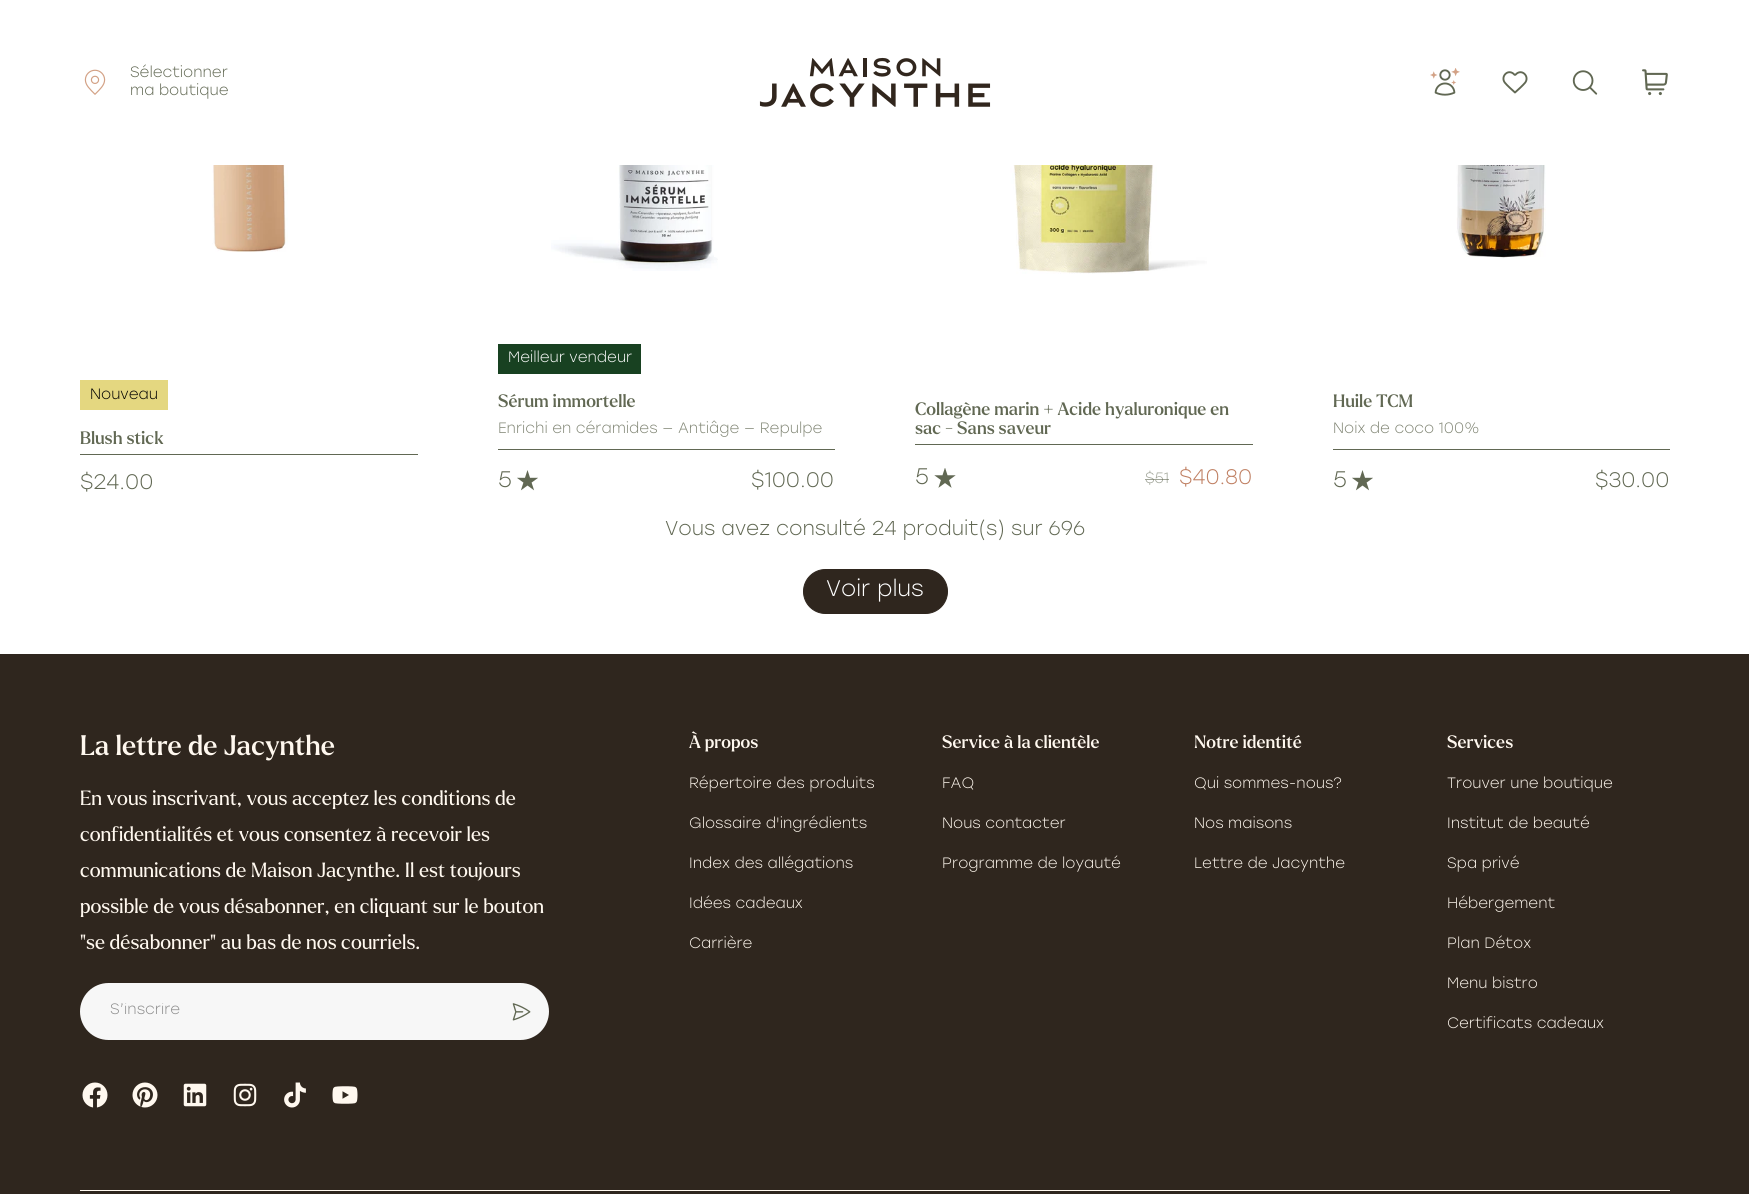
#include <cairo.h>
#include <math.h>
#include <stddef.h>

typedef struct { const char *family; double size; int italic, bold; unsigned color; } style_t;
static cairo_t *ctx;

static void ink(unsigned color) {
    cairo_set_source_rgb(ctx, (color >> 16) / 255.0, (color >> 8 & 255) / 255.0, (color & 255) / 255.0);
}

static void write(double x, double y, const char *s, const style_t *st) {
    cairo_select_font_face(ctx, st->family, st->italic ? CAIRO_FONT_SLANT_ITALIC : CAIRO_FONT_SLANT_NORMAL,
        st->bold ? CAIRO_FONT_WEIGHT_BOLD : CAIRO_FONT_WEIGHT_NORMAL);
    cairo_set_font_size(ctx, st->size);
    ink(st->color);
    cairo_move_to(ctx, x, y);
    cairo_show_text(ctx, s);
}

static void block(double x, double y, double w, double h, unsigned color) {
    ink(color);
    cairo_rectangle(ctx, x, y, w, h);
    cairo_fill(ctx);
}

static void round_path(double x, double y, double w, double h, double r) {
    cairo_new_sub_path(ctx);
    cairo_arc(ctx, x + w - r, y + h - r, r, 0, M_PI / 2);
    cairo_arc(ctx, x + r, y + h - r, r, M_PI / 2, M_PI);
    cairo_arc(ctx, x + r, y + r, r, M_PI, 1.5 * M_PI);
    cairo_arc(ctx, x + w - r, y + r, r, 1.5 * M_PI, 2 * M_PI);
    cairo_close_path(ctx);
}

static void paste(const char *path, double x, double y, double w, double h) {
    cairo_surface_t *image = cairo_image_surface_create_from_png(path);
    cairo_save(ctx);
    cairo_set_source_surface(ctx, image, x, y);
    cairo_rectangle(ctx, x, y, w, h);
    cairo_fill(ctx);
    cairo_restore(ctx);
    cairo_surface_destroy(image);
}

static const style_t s1 = {"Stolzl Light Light", 15, 0, 0, 0x616853};
static const style_t s2 = {"Stolzl Light Light", 15, 0, 0, 0x000000};
static const style_t s3 = {"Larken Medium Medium", 17.5, 0, 0, 0x616853};
static const style_t s4 = {"Stolzl Light Light", 21, 0, 0, 0x616853};
static const style_t s5 = {"Stolzl Light Light", 15, 0, 0, 0xffffff};
static const style_t s6 = {"Stolzl Light Light", 15, 0, 0, 0x818675};
static const style_t s7 = {"Stolzl Light Light", 22.5, 0, 0, 0x616853};
static const style_t s8 = {"Stolzl Light Light", 15, 0, 0, 0xa0a498};
static const style_t s9 = {"Stolzl Light Light", 21, 0, 0, 0xbf7f62};
static const style_t s10 = {"Stolzl Light Light", 20, 0, 0, 0x616853};
static const style_t s11 = {"Stolzl Light Light", 22.5, 0, 0, 0xffffff};
static const style_t s12 = {"Larken Medium Medium", 27.5, 0, 0, 0xfff8ef};
static const style_t s13 = {"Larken", 20, 0, 0, 0xfff8ef};
static const style_t s14 = {"Stolzl Light Light", 15, 0, 0, 0x8b8b8b};
static const style_t s15 = {"Larken Medium Medium", 17.5, 0, 0, 0xfff8ef};
static const style_t s16 = {"Stolzl Light Light", 15, 0, 0, 0xfff8ef};

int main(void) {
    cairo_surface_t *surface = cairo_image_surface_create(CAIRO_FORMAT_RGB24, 1749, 1194);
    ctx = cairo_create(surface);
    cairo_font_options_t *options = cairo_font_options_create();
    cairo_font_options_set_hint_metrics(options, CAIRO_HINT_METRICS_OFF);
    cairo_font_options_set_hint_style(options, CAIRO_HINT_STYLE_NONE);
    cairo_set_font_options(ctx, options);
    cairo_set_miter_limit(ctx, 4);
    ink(0xffffff);
    cairo_paint(ctx);
    paste("pic1.png", 84, 69, 22, 26);
    write(130, 77, "Sélectionner", &s1);
    write(130, 95, "ma boutique", &s1);
    paste("pic2.png", 759, 57, 232, 50);
    paste("pic3.png", 1430, 68, 30, 28);
    paste("pic4.png", 1502, 71, 26, 23);
    paste("pic5.png", 1572, 70, 26, 25);
    paste("pic6.png", 1642, 69, 26, 27);
    paste("pic7.png", 212, 165, 76, 87);
    block(80, 380, 88, 30, 0xe4d780);
    write(90, 399, "Nouveau", &s2);
    write(80, 444, "Blush stick", &s3);
    block(80, 454, 338, 1, 0x616853);
    write(80, 489, "$24.00", &s4);
    paste("pic8.png", 551, 165, 167, 106);
    block(498, 344, 143, 30, 0x184121);
    write(508, 362, "Meilleur vendeur", &s5);
    write(498, 407, "Sérum immortelle", &s3);
    write(498, 433, "Enrichi en céramides — Antiâge — Repulpe", &s6);
    block(498, 449, 337, 1, 0x616853);
    write(498, 487, "5", &s7);
    paste("pic9.png", 517, 470, 21, 21);
    write(751, 487, "$100.00", &s4);
    paste("pic10.png", 1008, 165, 199, 109);
    write(915, 415, "Collagène marin + Acide hyaluronique en", &s3);
    write(915, 434, "sac - Sans saveur", &s3);
    block(915, 444, 338, 1, 0x616853);
    write(915, 484, "5", &s7);
    paste("pic11.png", 934, 468, 22, 20);
    write(1145, 483, "$51", &s8);
    cairo_set_source_rgba(ctx, 0.38, 0.408, 0.325, 0.6);
    cairo_rectangle(ctx, 1145, 479, 24, 1);
    cairo_fill(ctx);
    write(1179, 484, "$40.80", &s9);
    paste("pic12.png", 1456, 165, 90, 94);
    write(1333, 407, "Huile TCM", &s3);
    write(1333, 433, "Noix de coco 100%", &s6);
    block(1333, 449, 337, 1, 0x616853);
    write(1333, 487, "5", &s7);
    paste("pic9.png", 1352, 470, 21, 21);
    write(1595, 487, "$30.00", &s4);
    write(665, 535, "Vous avez consulté 24 produit(s) sur 696", &s10);
    ink(0x2f261e);
    round_path(803.5, 569.5, 144, 44, 22);
    cairo_fill_preserve(ctx);
    cairo_set_line_width(ctx, 1);
    cairo_stroke(ctx);
    write(826, 596, "Voir plus", &s11);
    block(0, 654, 1749, 540, 0x2f261e);
    write(80, 755, "La lettre de Jacynthe", &s12);
    write(80, 805, "En vous inscrivant, vous acceptez les conditions de", &s13);
    write(80, 841, "confidentialités et vous consentez à recevoir les", &s13);
    write(80, 877, "communications de Maison Jacynthe. Il est toujours", &s13);
    write(80, 913, "possible de vous désabonner, en cliquant sur le bouton", &s13);
    write(80, 949, "\"se désabonner\" au bas de nos courriels.", &s13);
    ink(0xf7f7f7);
    round_path(80, 983, 469, 57, 28.5);
    cairo_fill(ctx);
    cairo_save(ctx);
    cairo_rectangle(ctx, 110, 1003, 409, 15);
    cairo_clip(ctx);
    write(110, 1014, "S’inscrire", &s14);
    cairo_restore(ctx);
    paste("pic13.png", 512, 1003, 19, 18);
    paste("pic14.png", 82, 1082, 26, 26);
    paste("pic15.png", 132, 1082, 26, 26);
    paste("pic16.png", 183, 1083, 24, 24);
    paste("pic17.png", 233, 1083, 24, 24);
    paste("pic18.png", 284, 1082, 22, 26);
    paste("pic19.png", 332, 1086, 26, 18);
    write(689, 748, "À propos", &s15);
    write(689, 788, "Répertoire des produits", &s16);
    write(689, 828, "Glossaire d'ingrédients", &s16);
    write(689, 868, "Index des allégations", &s16);
    write(689, 908, "Idées cadeaux", &s16);
    write(689, 948, "Carrière", &s16);
    write(942, 748, "Service à la clientèle", &s15);
    write(942, 788, "FAQ", &s16);
    write(942, 828, "Nous contacter", &s16);
    write(942, 868, "Programme de loyauté", &s16);
    write(1194, 748, "Notre identité", &s15);
    write(1194, 788, "Qui sommes-nous?", &s16);
    write(1194, 828, "Nos maisons", &s16);
    write(1194, 868, "Lettre de Jacynthe", &s16);
    write(1447, 748, "Services", &s15);
    write(1447, 788, "Trouver une boutique", &s16);
    write(1447, 828, "Institut de beauté", &s16);
    write(1447, 868, "Spa privé", &s16);
    write(1447, 908, "Hébergement", &s16);
    write(1447, 948, "Plan Détox", &s16);
    write(1447, 988, "Menu bistro", &s16);
    write(1447, 1028, "Certificats cadeaux", &s16);
    block(80, 1190, 1590, 1, 0xfff8ef);
    cairo_surface_write_to_png(surface, "screenshot.png");
    cairo_font_options_destroy(options);
    cairo_destroy(ctx);
    cairo_surface_destroy(surface);
    return 0;
}
